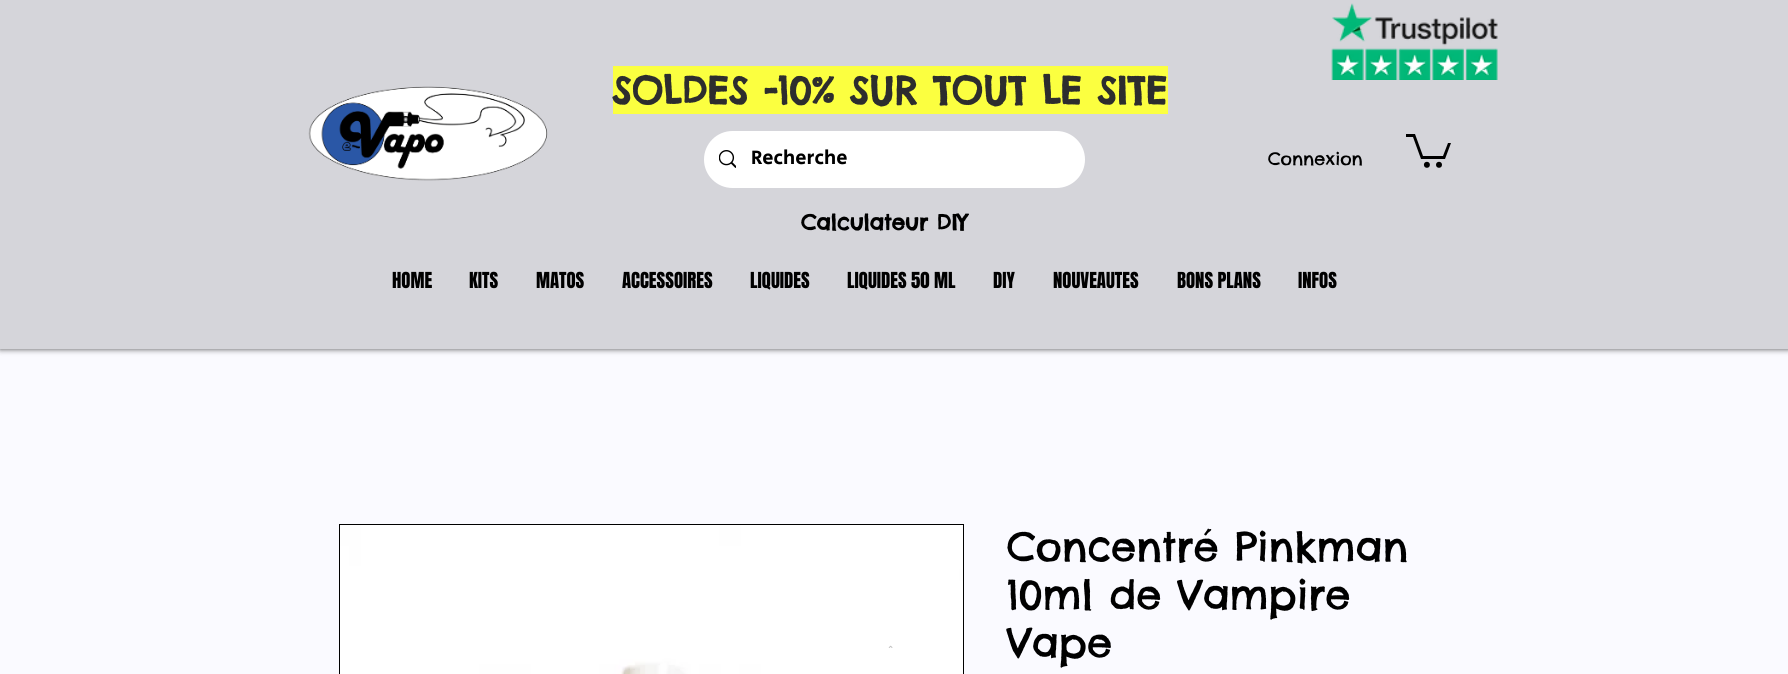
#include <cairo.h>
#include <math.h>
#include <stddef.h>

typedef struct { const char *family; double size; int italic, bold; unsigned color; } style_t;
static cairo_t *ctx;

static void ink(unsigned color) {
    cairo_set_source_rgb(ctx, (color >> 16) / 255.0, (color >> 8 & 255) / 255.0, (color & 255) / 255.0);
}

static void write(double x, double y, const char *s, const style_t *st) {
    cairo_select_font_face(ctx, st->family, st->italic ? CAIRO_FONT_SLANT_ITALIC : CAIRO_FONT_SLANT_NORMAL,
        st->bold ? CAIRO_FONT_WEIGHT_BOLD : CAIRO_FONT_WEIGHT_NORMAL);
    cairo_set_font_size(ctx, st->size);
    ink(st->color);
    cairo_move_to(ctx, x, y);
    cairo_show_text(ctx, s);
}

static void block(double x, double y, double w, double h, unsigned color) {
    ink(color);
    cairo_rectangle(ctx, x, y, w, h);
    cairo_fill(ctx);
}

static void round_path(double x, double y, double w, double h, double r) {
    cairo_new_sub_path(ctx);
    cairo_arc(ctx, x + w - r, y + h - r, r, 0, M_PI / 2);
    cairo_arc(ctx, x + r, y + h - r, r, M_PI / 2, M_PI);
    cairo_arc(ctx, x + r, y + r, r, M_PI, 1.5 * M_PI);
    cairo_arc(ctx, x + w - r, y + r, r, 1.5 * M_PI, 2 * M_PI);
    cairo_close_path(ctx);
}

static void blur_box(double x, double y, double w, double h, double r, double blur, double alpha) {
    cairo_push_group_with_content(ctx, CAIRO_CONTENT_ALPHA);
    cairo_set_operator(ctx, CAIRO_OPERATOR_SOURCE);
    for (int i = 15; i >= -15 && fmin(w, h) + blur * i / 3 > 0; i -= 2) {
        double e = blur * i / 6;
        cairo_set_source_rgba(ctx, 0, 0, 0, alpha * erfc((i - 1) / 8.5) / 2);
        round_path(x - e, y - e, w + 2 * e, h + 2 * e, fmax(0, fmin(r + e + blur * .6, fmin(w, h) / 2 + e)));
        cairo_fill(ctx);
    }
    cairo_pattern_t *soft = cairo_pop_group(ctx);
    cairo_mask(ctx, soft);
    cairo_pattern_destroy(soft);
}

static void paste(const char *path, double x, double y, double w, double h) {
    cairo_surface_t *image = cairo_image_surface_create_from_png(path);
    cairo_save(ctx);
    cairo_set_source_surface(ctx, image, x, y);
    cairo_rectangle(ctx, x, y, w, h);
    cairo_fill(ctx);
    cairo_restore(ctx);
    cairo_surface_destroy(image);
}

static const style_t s1 = {"Chelsea Market", 37.5, 0, 1, 0x2d2d2e};
static const style_t s2 = {"Secular One", 20, 0, 0, 0x000000};
static const style_t s3 = {"Chelsea Market", 17.5, 0, 0, 0x000000};
static const style_t s4 = {"Chelsea Market", 21.25, 0, 1, 0x000000};
static const style_t s5 = {"Anton", 18.75, 0, 0, 0x000000};
static const style_t s6 = {"Chelsea Market", 40, 0, 0, 0x000000};

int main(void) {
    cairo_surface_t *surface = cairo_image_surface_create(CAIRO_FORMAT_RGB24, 1788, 674);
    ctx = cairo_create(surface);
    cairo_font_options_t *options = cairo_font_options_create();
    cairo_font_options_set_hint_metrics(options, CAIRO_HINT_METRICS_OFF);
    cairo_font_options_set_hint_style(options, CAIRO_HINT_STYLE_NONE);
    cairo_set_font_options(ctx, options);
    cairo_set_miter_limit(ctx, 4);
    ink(0xfafaff);
    cairo_paint(ctx);
    cairo_save(ctx);
    cairo_set_fill_rule(ctx, CAIRO_FILL_RULE_EVEN_ODD);
    cairo_new_path(ctx);
    cairo_move_to(ctx, 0, 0);
    cairo_line_to(ctx, 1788, 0);
    cairo_line_to(ctx, 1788, 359);
    cairo_line_to(ctx, 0, 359);
    cairo_close_path(ctx);
    cairo_move_to(ctx, 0, 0);
    cairo_line_to(ctx, 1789, 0);
    cairo_line_to(ctx, 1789, 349);
    cairo_line_to(ctx, 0, 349);
    cairo_close_path(ctx);
    cairo_clip(ctx);
    ink(0x000000);
    blur_box(0, 0, 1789, 349, 0, 3, 0.7);
    cairo_restore(ctx);
    cairo_set_source_rgba(ctx, 0.353, 0.353, 0.361, 0.23);
    cairo_rectangle(ctx, 0, 0, 1788, 349);
    cairo_fill(ctx);
    paste("pic1.png", 1331, 3, 167, 77);
    paste("pic2.png", 308, 86, 240, 95);
    block(613, 66, 555, 48, 0xfbff40);
    write(612, 104, "SOLDES -10% SUR TOUT LE SITE", &s1);
    ink(0x000000);
    cairo_new_path(ctx);
    cairo_move_to(ctx, 1451, 143);
    cairo_line_to(ctx, 1445, 159);
    cairo_line_to(ctx, 1421, 159);
    cairo_line_to(ctx, 1413, 137);
    cairo_line_to(ctx, 1406, 137);
    cairo_line_to(ctx, 1406, 134);
    cairo_line_to(ctx, 1415, 134);
    cairo_line_to(ctx, 1423, 156);
    cairo_line_to(ctx, 1443, 156);
    cairo_line_to(ctx, 1448, 143);
    cairo_fill(ctx);
    cairo_arc(ctx, 1439, 164.8, 3, 0, 2 * M_PI);
    cairo_fill(ctx);
    cairo_arc(ctx, 1426.9, 164.8, 3, 0, 2 * M_PI);
    cairo_fill(ctx);
    ink(0xffffff);
    round_path(704, 131, 381, 57, 28.5);
    cairo_fill(ctx);
    paste("pic3.png", 719, 150, 17, 18);
    write(751, 164, "Recherche", &s2);
    write(1268, 165, "Connexion", &s3);
    write(801, 230, "Calculateur DIY", &s4);
    write(392, 288, "HOME", &s5);
    write(469, 288, "KITS", &s5);
    write(536, 288, "MATOS", &s5);
    write(622, 288, "ACCESSOIRES", &s5);
    write(750, 288, "LIQUIDES", &s5);
    write(847, 288, "LIQUIDES 50 ML", &s5);
    write(993, 288, "DIY", &s5);
    write(1053, 288, "NOUVEAUTES", &s5);
    write(1177, 288, "BONS PLANS", &s5);
    write(1298, 288, "INFOS", &s5);
    cairo_rectangle(ctx, 339.5, 524.5, 624, 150);
    cairo_set_line_width(ctx, 1);
    cairo_stroke(ctx);
    paste("pic5.png", 340, 525, 623, 149);
    paste("pic4.png", 888, 645, 5, 3);
    write(1007, 561, "Concentré Pinkman", &s6);
    write(1007, 609, "10ml de Vampire", &s6);
    write(1007, 657, "Vape", &s6);
    cairo_surface_write_to_png(surface, "screenshot.png");
    cairo_font_options_destroy(options);
    cairo_destroy(ctx);
    cairo_surface_destroy(surface);
    return 0;
}
